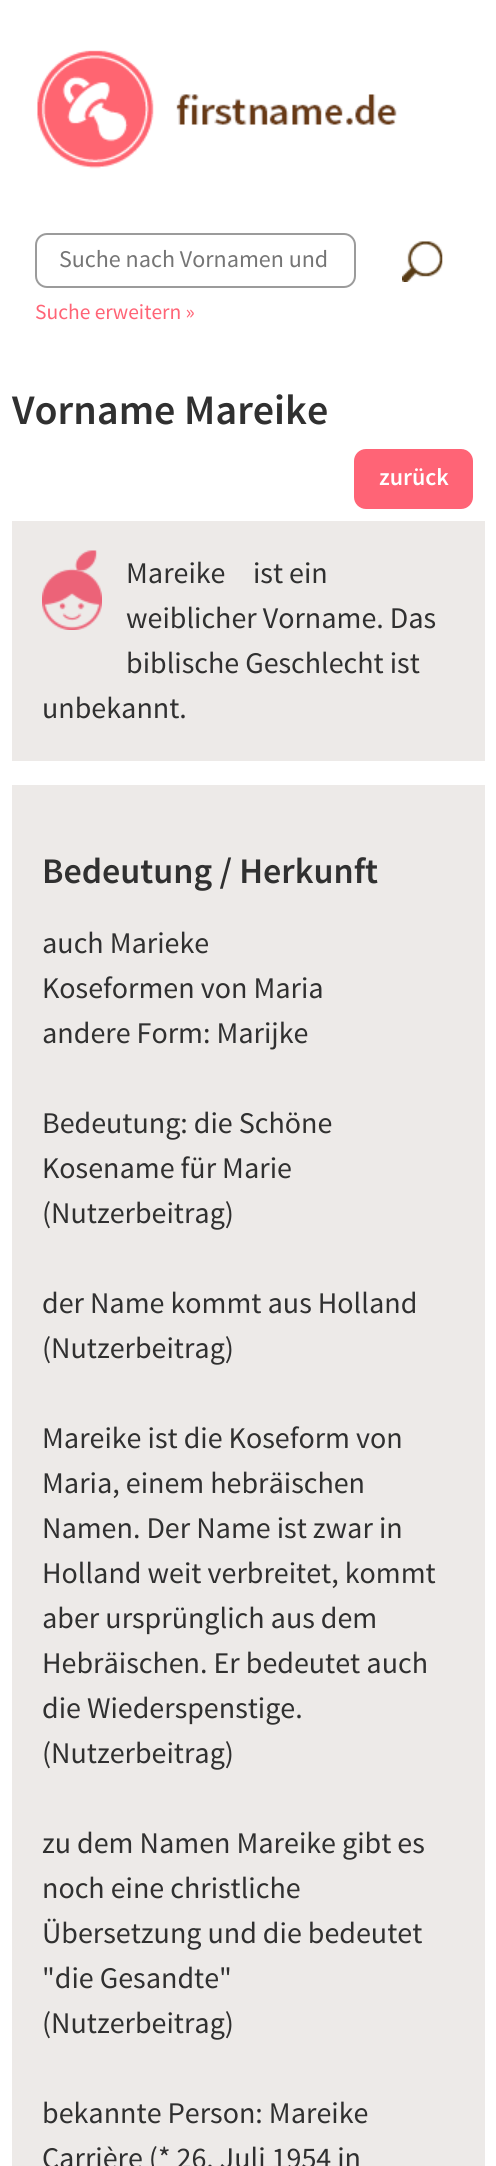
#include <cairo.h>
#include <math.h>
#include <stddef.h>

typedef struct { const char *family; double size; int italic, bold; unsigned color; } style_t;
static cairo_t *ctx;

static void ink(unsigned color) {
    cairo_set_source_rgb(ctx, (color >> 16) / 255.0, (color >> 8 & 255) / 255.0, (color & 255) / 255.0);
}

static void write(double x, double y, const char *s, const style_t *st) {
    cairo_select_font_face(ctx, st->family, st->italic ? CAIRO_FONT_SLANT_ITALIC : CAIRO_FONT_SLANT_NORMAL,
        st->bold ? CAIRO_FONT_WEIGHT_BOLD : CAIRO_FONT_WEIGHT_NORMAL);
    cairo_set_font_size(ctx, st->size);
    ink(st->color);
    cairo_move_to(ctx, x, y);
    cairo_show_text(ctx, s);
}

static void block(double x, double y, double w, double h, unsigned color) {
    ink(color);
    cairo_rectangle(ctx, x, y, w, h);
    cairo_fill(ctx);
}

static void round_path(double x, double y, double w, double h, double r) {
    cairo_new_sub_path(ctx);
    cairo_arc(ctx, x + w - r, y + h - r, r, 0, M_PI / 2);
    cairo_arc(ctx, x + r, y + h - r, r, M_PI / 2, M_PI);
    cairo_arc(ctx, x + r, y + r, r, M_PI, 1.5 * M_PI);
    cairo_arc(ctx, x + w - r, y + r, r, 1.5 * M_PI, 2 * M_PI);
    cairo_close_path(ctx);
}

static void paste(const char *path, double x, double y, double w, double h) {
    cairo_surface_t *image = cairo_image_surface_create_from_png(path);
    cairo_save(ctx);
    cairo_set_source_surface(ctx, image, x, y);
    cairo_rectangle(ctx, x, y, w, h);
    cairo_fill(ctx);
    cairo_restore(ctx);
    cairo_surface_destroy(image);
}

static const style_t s1 = {"Source Sans Pro", 24, 0, 0, 0x757575};
static const style_t s2 = {"Source Sans Pro", 21.5, 0, 0, 0xff6476};
static const style_t s3 = {"Source Sans Pro SemiBold", 42, 0, 0, 0x303030};
static const style_t s4 = {"Source Sans Pro SemiBold", 24, 0, 0, 0xffffff};
static const style_t s5 = {"Source Sans Pro", 30, 0, 0, 0x303030};
static const style_t s6 = {"Source Sans Pro SemiBold", 36, 0, 0, 0x303030};

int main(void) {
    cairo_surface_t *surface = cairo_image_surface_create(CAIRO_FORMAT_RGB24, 496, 2166);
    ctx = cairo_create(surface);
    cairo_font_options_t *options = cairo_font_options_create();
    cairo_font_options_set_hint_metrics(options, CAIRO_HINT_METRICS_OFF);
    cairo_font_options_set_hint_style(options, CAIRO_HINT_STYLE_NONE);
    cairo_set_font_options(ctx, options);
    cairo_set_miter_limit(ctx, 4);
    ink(0xffffff);
    cairo_paint(ctx);
    paste("pic1.png", 37, 50, 360, 119);
    round_path(36, 234, 319, 53, 11);
    ink(0x9b9b9b);
    cairo_stroke(ctx);
    write(59, 267, "Suche nach Vornamen und", &s1);
    paste("pic2.png", 402, 241, 41, 41);
    write(35, 319, "Suche erweitern »", &s2);
    write(12, 424, "Vorname Mareike", &s3);
    ink(0xff6476);
    round_path(354, 449, 119, 60, 12);
    cairo_fill(ctx);
    write(379, 485, "zurück", &s4);
    block(12, 521, 473, 240, 0xedeae8);
    paste("pic3.png", 42, 550, 60, 80);
    write(126, 583, "Mareike", &s5);
    write(253, 583, "ist ein", &s5);
    write(126, 628, "weiblicher Vorname. Das", &s5);
    write(126, 673, "biblische Geschlecht ist", &s5);
    write(42, 718, "unbekannt.", &s5);
    block(12, 785, 473, 1381, 0xedeae8);
    write(42, 883, "Bedeutung / Herkunft", &s6);
    write(42, 953, "auch Marieke", &s5);
    write(42, 998, "Koseformen von Maria", &s5);
    write(42, 1043, "andere Form: Marijke", &s5);
    write(42, 1133, "Bedeutung: die Schöne", &s5);
    write(42, 1178, "Kosename für Marie", &s5);
    write(42, 1223, "(Nutzerbeitrag)", &s5);
    write(42, 1313, "der Name kommt aus Holland", &s5);
    write(42, 1358, "(Nutzerbeitrag)", &s5);
    write(42, 1448, "Mareike ist die Koseform von", &s5);
    write(42, 1493, "Maria, einem hebräischen", &s5);
    write(42, 1538, "Namen. Der Name ist zwar in", &s5);
    write(42, 1583, "Holland weit verbreitet, kommt", &s5);
    write(42, 1628, "aber ursprünglich aus dem", &s5);
    write(42, 1673, "Hebräischen. Er bedeutet auch", &s5);
    write(42, 1718, "die Wiederspenstige.", &s5);
    write(42, 1763, "(Nutzerbeitrag)", &s5);
    write(42, 1853, "zu dem Namen Mareike gibt es", &s5);
    write(42, 1898, "noch eine christliche", &s5);
    write(42, 1943, "Übersetzung und die bedeutet", &s5);
    write(42, 1988, "\"die Gesandte\"", &s5);
    write(42, 2033, "(Nutzerbeitrag)", &s5);
    write(42, 2123, "bekannte Person: Mareike", &s5);
    write(42, 2168, "Carrière (* 26. Juli 1954 in", &s5);
    cairo_surface_write_to_png(surface, "screenshot.png");
    cairo_font_options_destroy(options);
    cairo_destroy(ctx);
    cairo_surface_destroy(surface);
    return 0;
}
